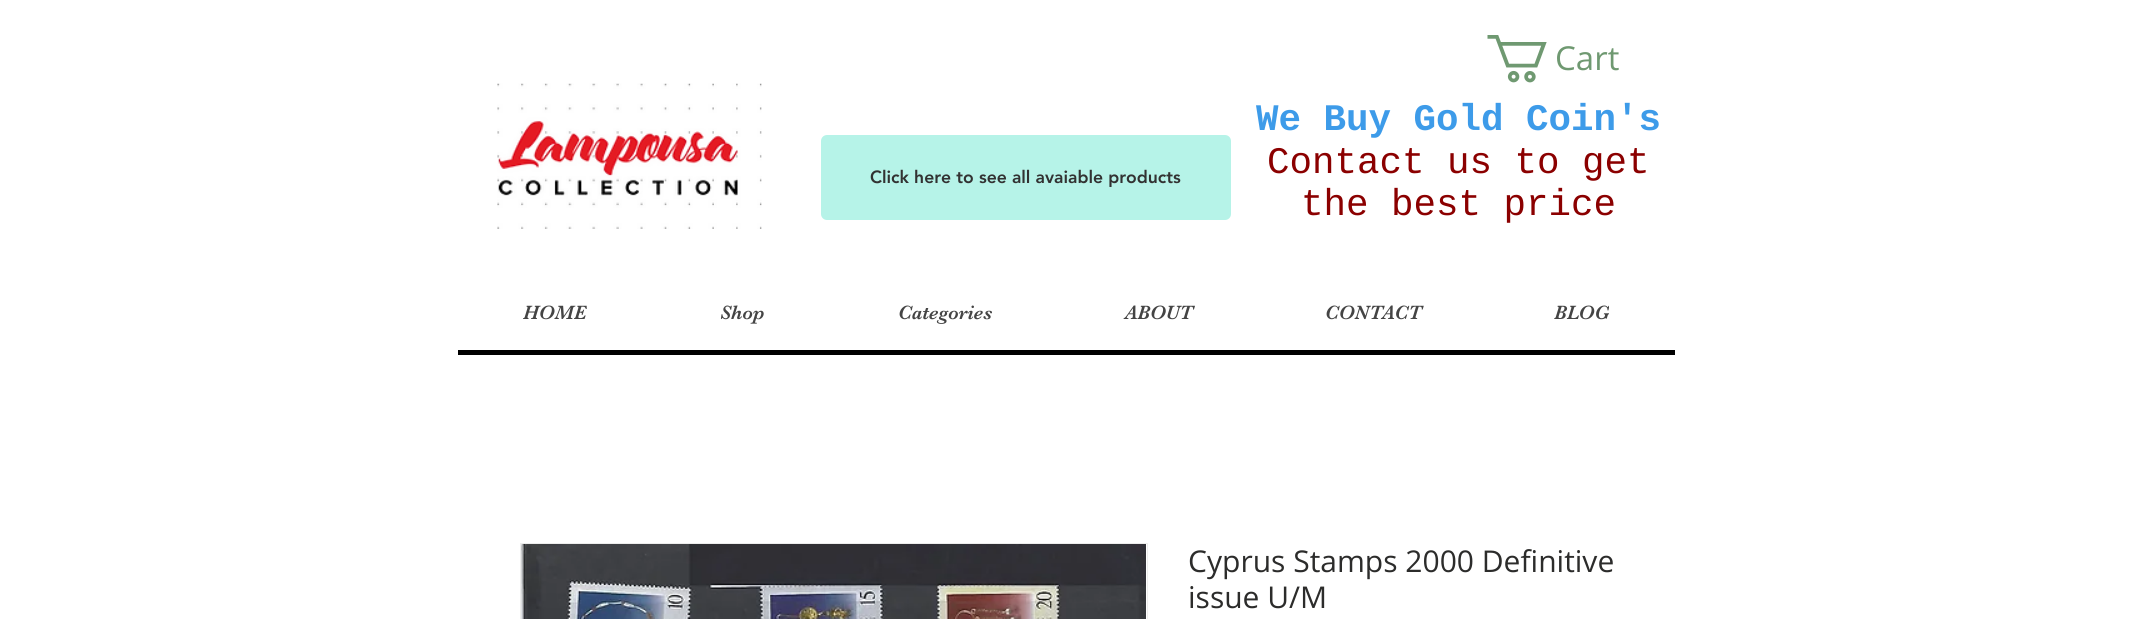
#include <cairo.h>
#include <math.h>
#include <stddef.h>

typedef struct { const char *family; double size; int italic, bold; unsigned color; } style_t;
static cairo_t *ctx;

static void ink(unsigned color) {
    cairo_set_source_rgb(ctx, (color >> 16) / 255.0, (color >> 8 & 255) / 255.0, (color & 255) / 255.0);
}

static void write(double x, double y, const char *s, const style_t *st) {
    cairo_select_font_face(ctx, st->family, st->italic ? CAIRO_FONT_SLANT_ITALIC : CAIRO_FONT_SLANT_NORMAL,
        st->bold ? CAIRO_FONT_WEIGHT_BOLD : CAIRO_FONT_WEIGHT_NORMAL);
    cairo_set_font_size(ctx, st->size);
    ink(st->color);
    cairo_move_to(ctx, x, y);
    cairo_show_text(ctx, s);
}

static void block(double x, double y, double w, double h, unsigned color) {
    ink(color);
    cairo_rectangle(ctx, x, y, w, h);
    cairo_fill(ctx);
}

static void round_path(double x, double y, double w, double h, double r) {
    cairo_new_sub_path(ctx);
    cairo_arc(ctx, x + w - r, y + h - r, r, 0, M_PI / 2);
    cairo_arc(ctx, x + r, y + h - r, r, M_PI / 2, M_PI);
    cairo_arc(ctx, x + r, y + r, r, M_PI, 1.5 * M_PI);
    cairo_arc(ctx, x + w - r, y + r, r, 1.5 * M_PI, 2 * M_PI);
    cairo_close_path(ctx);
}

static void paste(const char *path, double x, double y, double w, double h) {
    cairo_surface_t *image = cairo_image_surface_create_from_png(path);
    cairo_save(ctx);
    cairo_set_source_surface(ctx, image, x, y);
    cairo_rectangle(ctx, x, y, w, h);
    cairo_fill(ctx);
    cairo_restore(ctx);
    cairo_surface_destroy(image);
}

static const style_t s1 = {"Open Sans", 33, 0, 0, 0x6f9971};
static const style_t s2 = {"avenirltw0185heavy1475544 Black", 17.5, 0, 0, 0x323232};
static const style_t s3 = {"Liberation Mono", 37.5, 0, 1, 0x3d9be9};
static const style_t s4 = {"Liberation Mono", 37.5, 0, 0, 0x8b0000};
static const style_t s5 = {"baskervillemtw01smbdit", 20, 0, 0, 0x444444};
static const style_t s6 = {"Open Sans", 30, 0, 0, 0x2c2c2b};

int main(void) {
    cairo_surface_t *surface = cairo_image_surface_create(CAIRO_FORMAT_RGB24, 2151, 619);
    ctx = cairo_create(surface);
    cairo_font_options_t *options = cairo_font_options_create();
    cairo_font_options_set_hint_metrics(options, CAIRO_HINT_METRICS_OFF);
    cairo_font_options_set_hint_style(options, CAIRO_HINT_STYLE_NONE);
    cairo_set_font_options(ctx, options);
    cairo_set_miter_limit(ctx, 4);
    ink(0xffffff);
    cairo_paint(ctx);
    paste("pic1.png", 1487, 35, 60, 48);
    write(1555, 70, "Cart", &s1);
    paste("pic2.png", 497, 83, 265, 146);
    ink(0xb6f3e8);
    round_path(821, 135, 410, 85, 6);
    cairo_fill(ctx);
    write(870, 183, "Click here to see all avaiable products", &s2);
    write(1256, 130, "We Buy Gold Coin's", &s3);
    write(1267, 173, "Contact us to get", &s4);
    write(1301, 215, "the best price", &s4);
    block(458, 350, 1217, 5, 0x000000);
    write(523, 319, "HOME", &s5);
    write(720, 319, "Shop", &s5);
    write(898, 319, "Categories", &s5);
    write(1125, 319, "ABOUT", &s5);
    write(1325, 319, "CONTACT", &s5);
    write(1554, 319, "BLOG", &s5);
    cairo_rectangle(ctx, 520.5, 543.5, 627, 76);
    ink(0xededec);
    cairo_set_line_width(ctx, 1);
    cairo_stroke(ctx);
    paste("pic3.png", 521, 544, 625, 75);
    write(1188, 572, "Cyprus Stamps 2000 Definitive", &s6);
    write(1188, 608, "issue U/M", &s6);
    cairo_surface_write_to_png(surface, "screenshot.png");
    cairo_font_options_destroy(options);
    cairo_destroy(ctx);
    cairo_surface_destroy(surface);
    return 0;
}
